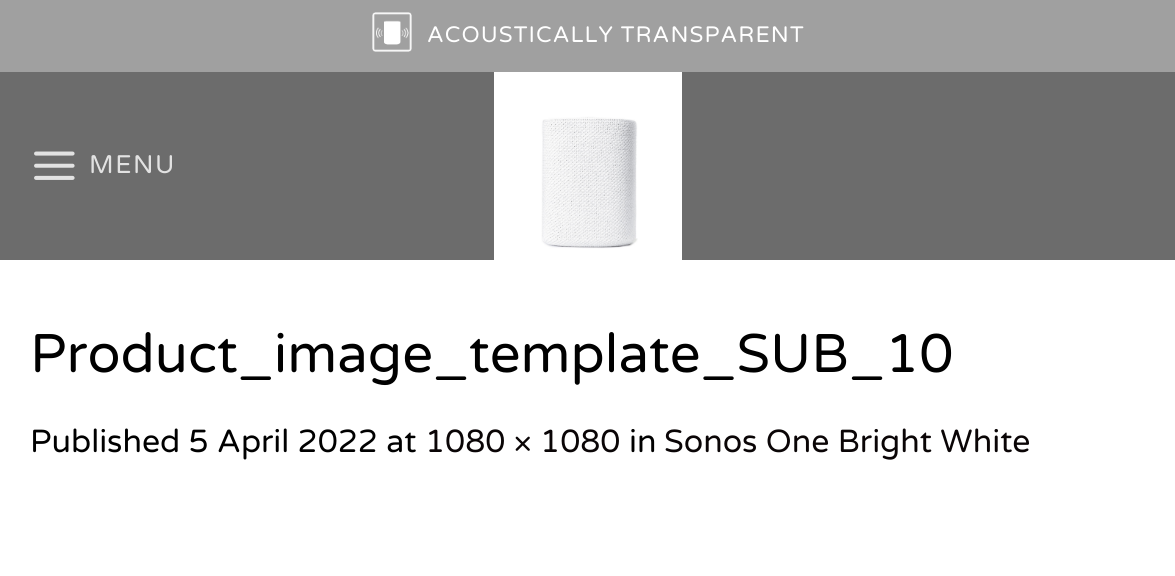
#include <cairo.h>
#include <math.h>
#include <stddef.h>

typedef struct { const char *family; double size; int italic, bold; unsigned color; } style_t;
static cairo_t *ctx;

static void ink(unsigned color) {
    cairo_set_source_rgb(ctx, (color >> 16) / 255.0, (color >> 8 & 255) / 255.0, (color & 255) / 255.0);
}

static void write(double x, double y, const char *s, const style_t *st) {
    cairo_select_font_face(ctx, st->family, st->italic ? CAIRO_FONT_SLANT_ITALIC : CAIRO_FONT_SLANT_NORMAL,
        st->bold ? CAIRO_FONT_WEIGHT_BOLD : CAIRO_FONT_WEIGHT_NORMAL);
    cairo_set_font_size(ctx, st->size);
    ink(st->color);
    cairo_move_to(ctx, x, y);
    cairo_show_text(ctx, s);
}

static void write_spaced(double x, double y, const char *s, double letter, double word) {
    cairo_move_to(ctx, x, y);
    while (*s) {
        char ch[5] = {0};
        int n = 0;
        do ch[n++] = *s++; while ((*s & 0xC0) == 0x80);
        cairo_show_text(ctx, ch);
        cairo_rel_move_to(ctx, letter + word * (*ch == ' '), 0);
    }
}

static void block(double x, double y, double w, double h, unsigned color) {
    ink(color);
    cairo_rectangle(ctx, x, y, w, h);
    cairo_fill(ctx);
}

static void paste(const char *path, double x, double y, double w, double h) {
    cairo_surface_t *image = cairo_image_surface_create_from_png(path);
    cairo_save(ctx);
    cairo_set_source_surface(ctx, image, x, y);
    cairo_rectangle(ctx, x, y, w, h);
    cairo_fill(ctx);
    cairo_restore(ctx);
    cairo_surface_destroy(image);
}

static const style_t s1 = {"Varela Round", 54.4, 0, 0, 0x000000};
static const style_t s2 = {"Varela Round", 32, 0, 0, 0x000000};
static const style_t s3 = {"Varela Round", 32, 0, 0, 0x0a0506};

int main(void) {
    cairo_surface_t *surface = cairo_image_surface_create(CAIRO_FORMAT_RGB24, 1175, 576);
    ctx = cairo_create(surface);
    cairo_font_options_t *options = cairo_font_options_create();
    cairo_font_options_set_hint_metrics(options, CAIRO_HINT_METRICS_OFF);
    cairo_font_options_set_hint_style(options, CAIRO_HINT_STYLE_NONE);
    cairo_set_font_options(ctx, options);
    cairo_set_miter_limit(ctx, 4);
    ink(0xffffff);
    cairo_paint(ctx);
    block(0, 0, 1175, 72, 0xa0a0a0);
    paste("pic1.png", 372, 12, 40, 40);
    cairo_select_font_face(ctx, "Varela Round", CAIRO_FONT_SLANT_NORMAL, CAIRO_FONT_WEIGHT_NORMAL);
    cairo_set_font_size(ctx, 22.4);
    ink(0xffffff);
    write_spaced(427, 42, "ACOUSTICALLY TRANSPARENT", 1.1, 0);
    block(0, 72, 1175, 188, 0x6c6c6c);
    paste("pic2.png", 34, 151, 41, 29);
    cairo_set_font_size(ctx, 25.5);
    ink(0xe2e2e2);
    write_spaced(89, 173, "MENU", 1.5, 0);
    paste("pic3.png", 494, 72, 188, 188);
    write(30, 372, "Product_image_template_SUB_10", &s1);
    write(30, 452, "Published 5 April 2022 at", &s2);
    write(425, 452, "1080 × 1080", &s3);
    write(629, 452, "in", &s2);
    write(664, 452, "Sonos One Bright White", &s3);
    cairo_surface_write_to_png(surface, "screenshot.png");
    cairo_font_options_destroy(options);
    cairo_destroy(ctx);
    cairo_surface_destroy(surface);
    return 0;
}
